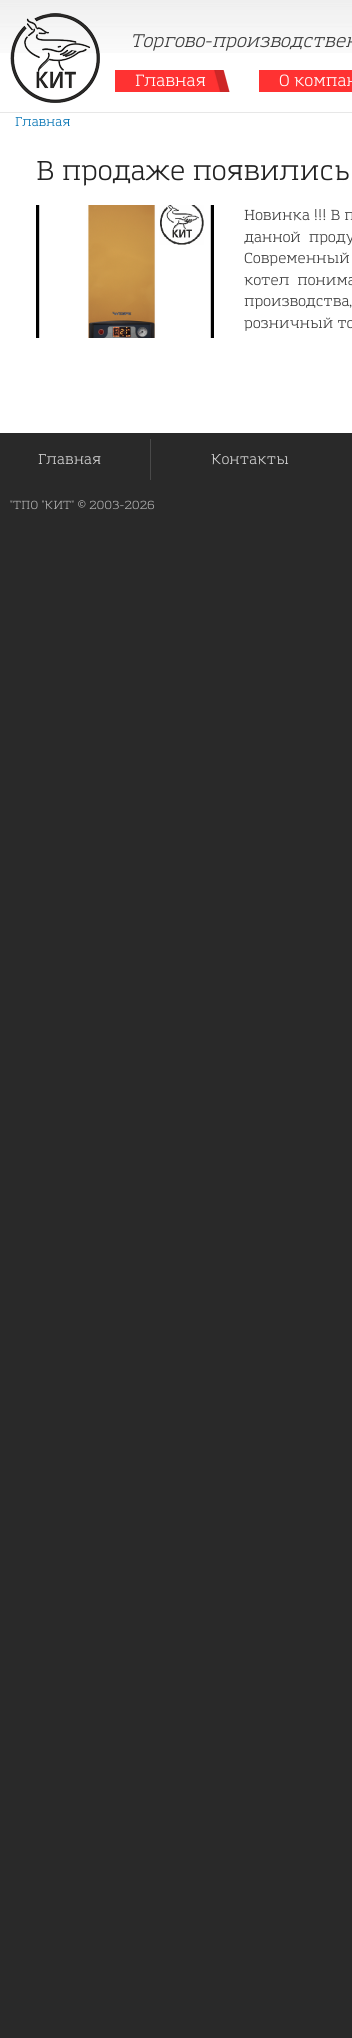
#include <cairo.h>
#include <math.h>
#include <stddef.h>

typedef struct { const char *family; double size; int italic, bold; unsigned color; } style_t;
static cairo_t *ctx;

static void ink(unsigned color) {
    cairo_set_source_rgb(ctx, (color >> 16) / 255.0, (color >> 8 & 255) / 255.0, (color & 255) / 255.0);
}

static void write(double x, double y, const char *s, const style_t *st) {
    cairo_select_font_face(ctx, st->family, st->italic ? CAIRO_FONT_SLANT_ITALIC : CAIRO_FONT_SLANT_NORMAL,
        st->bold ? CAIRO_FONT_WEIGHT_BOLD : CAIRO_FONT_WEIGHT_NORMAL);
    cairo_set_font_size(ctx, st->size);
    ink(st->color);
    cairo_move_to(ctx, x, y);
    cairo_show_text(ctx, s);
}

static void write_spaced(double x, double y, const char *s, double letter, double word) {
    cairo_move_to(ctx, x, y);
    while (*s) {
        char ch[5] = {0};
        int n = 0;
        do ch[n++] = *s++; while ((*s & 0xC0) == 0x80);
        cairo_show_text(ctx, ch);
        cairo_rel_move_to(ctx, letter + word * (*ch == ' '), 0);
    }
}

static void block(double x, double y, double w, double h, unsigned color) {
    ink(color);
    cairo_rectangle(ctx, x, y, w, h);
    cairo_fill(ctx);
}

static void paste(const char *path, double x, double y, double w, double h) {
    cairo_surface_t *image = cairo_image_surface_create_from_png(path);
    cairo_save(ctx);
    cairo_set_source_surface(ctx, image, x, y);
    cairo_rectangle(ctx, x, y, w, h);
    cairo_fill(ctx);
    cairo_restore(ctx);
    cairo_surface_destroy(image);
}

static const style_t s1 = {"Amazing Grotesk", 18, 1, 0, 0x3d3d3d};
static const style_t s2 = {"Amazing Grotesk", 16, 0, 0, 0xffffff};
static const style_t s3 = {"Amazing Grotesk", 12.5, 0, 0, 0x0071b3};
static const style_t s4 = {"Amazing Grotesk", 26.75, 0, 0, 0x222222};
static const style_t s5 = {"Amazing Grotesk", 14.25, 0, 0, 0x3d3d3d};

int main(void) {
    cairo_surface_t *surface = cairo_image_surface_create(CAIRO_FORMAT_RGB24, 352, 2038);
    ctx = cairo_create(surface);
    cairo_font_options_t *options = cairo_font_options_create();
    cairo_font_options_set_hint_metrics(options, CAIRO_HINT_METRICS_OFF);
    cairo_font_options_set_hint_style(options, CAIRO_HINT_STYLE_NONE);
    cairo_set_font_options(ctx, options);
    cairo_set_miter_limit(ctx, 4);
    ink(0x292929);
    cairo_paint(ctx);
    block(0, 53, 352, 380, 0xffffff);
    paste("pic1.png", 0, 0, 352, 53);
    paste("pic2.png", 10, 13, 90, 90);
    write(130, 47, "Торгово-производствен", &s1);
    block(0, 112, 352, 1, 0xe7e7e7);
    paste("pic3.png", 115, 70, 115, 22);
    write(135, 86, "Главная", &s2);
    block(259, 70, 93, 22, 0xff3232);
    write(279, 86, "О компан", &s2);
    write(15, 126, "Главная", &s3);
    write(36, 180, "В продаже появились", &s4);
    paste("pic4.png", 36, 205, 178, 133);
    write(244, 220, "Новинка !!! В п", &s5);
    write_spaced(244, 242, "данной проду", 0, 4);
    write_spaced(244, 263, "Современный", 0, 1);
    write_spaced(244, 285, "котел понима", 0, 4);
    write_spaced(244, 306, "производства,", 0, 1);
    write(244, 328, "розничный то", &s5);
    block(150, 439, 1, 41, 0x494949);
    cairo_set_font_size(ctx, 14);
    ink(0xd4d4d4);
    write_spaced(38, 464, "Главная", 0.2, 0);
    write_spaced(211, 464, "Контакты", 0.2, 0);
    cairo_set_font_size(ctx, 11.5);
    ink(0xb4b4b4);
    write_spaced(10, 509, "\"ТПО \"КИТ\" © 2003-2026", 0.2, 0);
    cairo_surface_write_to_png(surface, "screenshot.png");
    cairo_font_options_destroy(options);
    cairo_destroy(ctx);
    cairo_surface_destroy(surface);
    return 0;
}
